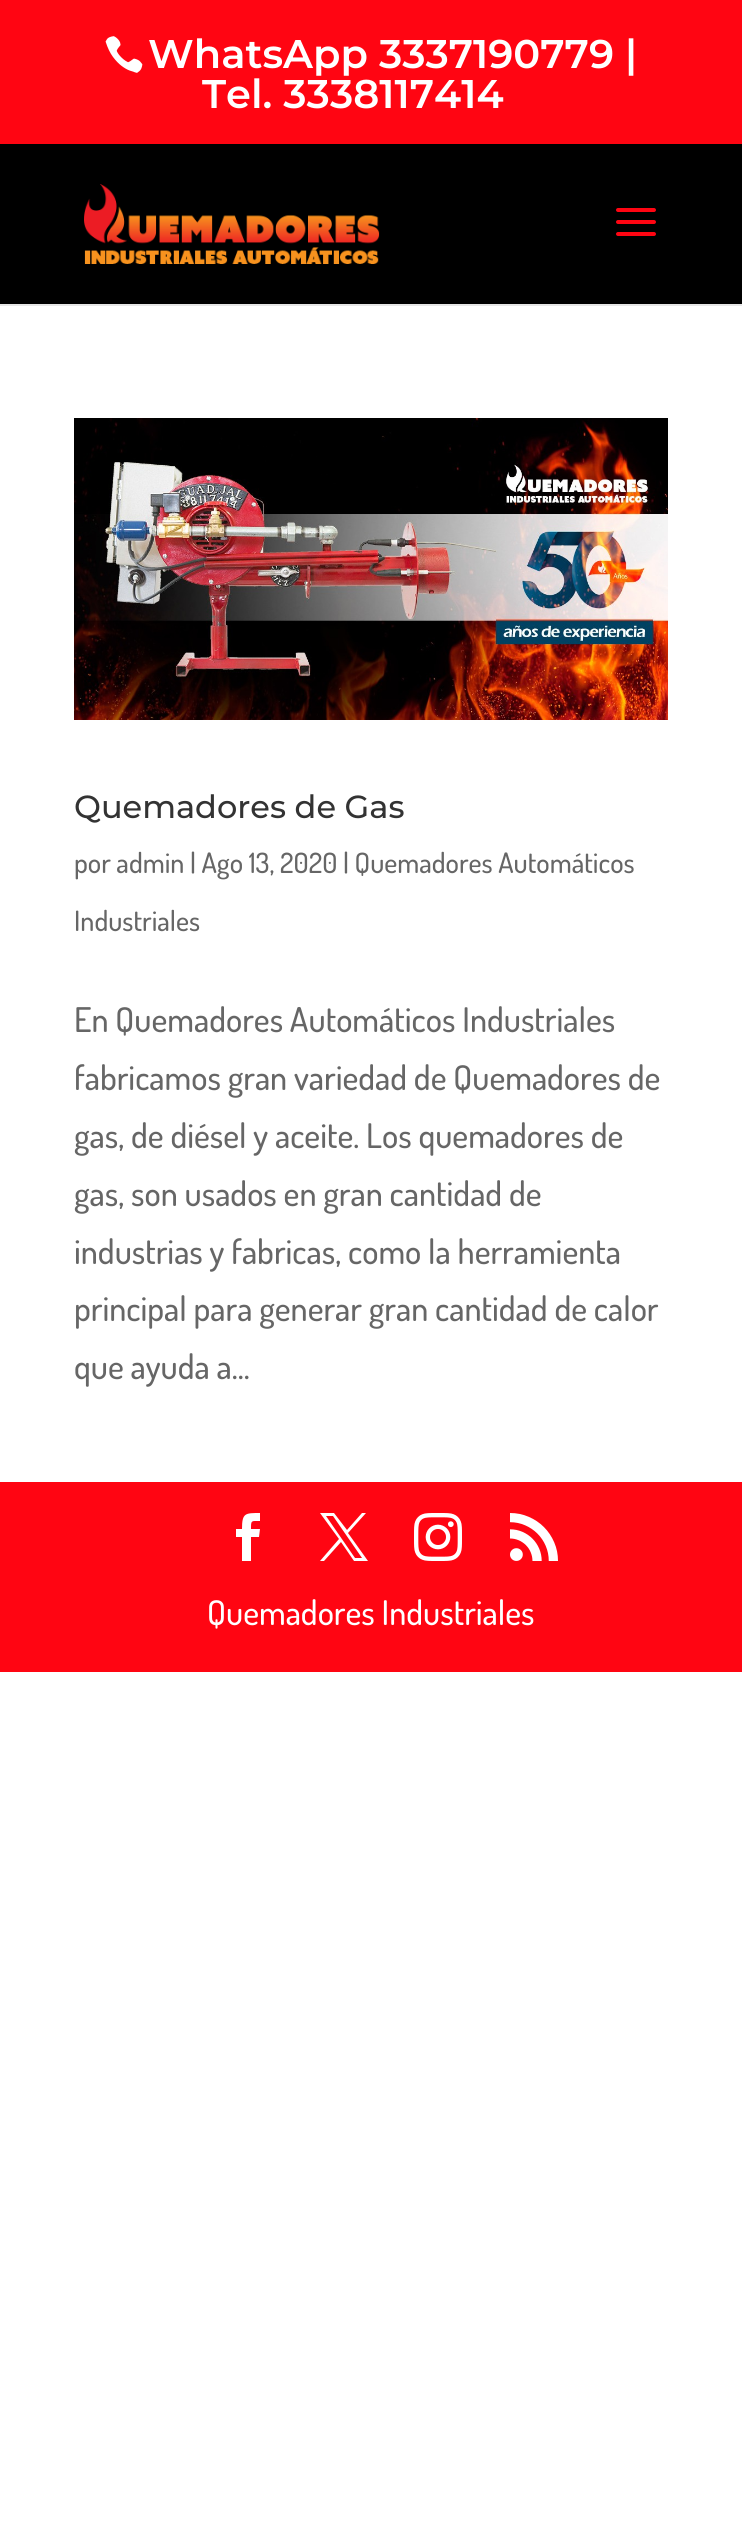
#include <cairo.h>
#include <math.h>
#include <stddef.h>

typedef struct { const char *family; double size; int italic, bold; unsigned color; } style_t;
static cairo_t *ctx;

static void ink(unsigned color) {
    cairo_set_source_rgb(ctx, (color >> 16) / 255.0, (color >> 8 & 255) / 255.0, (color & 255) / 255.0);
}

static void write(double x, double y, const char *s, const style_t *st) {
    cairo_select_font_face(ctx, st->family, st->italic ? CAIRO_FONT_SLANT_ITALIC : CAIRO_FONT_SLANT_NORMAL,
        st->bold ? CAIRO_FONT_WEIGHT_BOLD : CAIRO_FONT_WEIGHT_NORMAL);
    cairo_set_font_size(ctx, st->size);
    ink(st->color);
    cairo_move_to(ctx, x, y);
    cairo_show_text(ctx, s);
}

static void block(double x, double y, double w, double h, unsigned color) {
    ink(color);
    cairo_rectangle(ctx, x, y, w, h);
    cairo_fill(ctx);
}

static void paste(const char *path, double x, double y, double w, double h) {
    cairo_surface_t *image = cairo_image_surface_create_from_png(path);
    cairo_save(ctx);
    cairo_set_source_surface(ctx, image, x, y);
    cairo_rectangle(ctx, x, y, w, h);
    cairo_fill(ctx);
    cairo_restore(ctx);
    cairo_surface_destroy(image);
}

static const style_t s1 = {"Montserrat SemiBold", 40, 0, 0, 0xffffff};
static const style_t s2 = {"Montserrat Medium", 32, 0, 0, 0x333333};
static const style_t s3 = {"Dosis Medium", 28, 0, 0, 0x666666};
static const style_t s4 = {"Dosis Medium", 34, 0, 0, 0x666666};
static const style_t s5 = {"Dosis Medium", 34, 0, 0, 0xffffff};

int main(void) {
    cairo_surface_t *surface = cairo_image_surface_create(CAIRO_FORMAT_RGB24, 742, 2543);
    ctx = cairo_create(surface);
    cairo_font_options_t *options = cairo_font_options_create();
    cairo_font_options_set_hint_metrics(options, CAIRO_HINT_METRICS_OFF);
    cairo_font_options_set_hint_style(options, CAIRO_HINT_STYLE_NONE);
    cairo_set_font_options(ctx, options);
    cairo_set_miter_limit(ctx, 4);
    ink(0xffffff);
    cairo_paint(ctx);
    block(0, 0, 742, 144, 0xff0512);
    paste("pic1.png", 105, 36, 38, 37);
    write(148, 68, "WhatsApp 3337190779 |", &s1);
    write(202, 108, "Tel. 3338117414", &s1);
    block(0, 304, 742, 2, 0xe6e6e6);
    block(0, 144, 742, 160, 0x000000);
    paste("pic2.png", 84, 184, 296, 80);
    paste("pic3.png", 616, 208, 40, 28);
    paste("pic4.png", 74, 418, 594, 302);
    write(74, 818, "Quemadores de Gas", &s2);
    write(74, 873, "por admin | Ago 13, 2020 | Quemadores Automáticos", &s3);
    write(74, 931, "Industriales", &s3);
    write(74, 1032, "En Quemadores Automáticos Industriales", &s4);
    write(74, 1090, "fabricamos gran variedad de Quemadores de", &s4);
    write(74, 1148, "gas, de diésel y aceite. Los quemadores de", &s4);
    write(74, 1206, "gas, son usados en gran cantidad de", &s4);
    write(74, 1264, "industrias y fabricas, como la herramienta", &s4);
    write(74, 1321, "principal para generar gran cantidad de calor", &s4);
    write(74, 1379, "que ayuda a...", &s4);
    block(0, 1482, 742, 190, 0xff0512);
    ink(0xffffff);
    cairo_new_path(ctx);
    cairo_move_to(ctx, 242, 1561);
    cairo_line_to(ctx, 251, 1561);
    cairo_line_to(ctx, 251, 1537);
    cairo_line_to(ctx, 259, 1537);
    cairo_line_to(ctx, 260, 1529);
    cairo_line_to(ctx, 251, 1529);
    cairo_curve_to(ctx, 251, 1520, 251, 1521, 260, 1521);
    cairo_line_to(ctx, 260, 1513);
    cairo_curve_to(ctx, 245, 1513, 242, 1513, 242, 1529);
    cairo_line_to(ctx, 236, 1529);
    cairo_line_to(ctx, 236, 1537);
    cairo_line_to(ctx, 242, 1537);
    cairo_close_path(ctx);
    cairo_fill(ctx);
    cairo_new_path(ctx);
    cairo_move_to(ctx, 320, 1513);
    cairo_line_to(ctx, 339, 1539);
    cairo_line_to(ctx, 320, 1561);
    cairo_line_to(ctx, 324, 1561);
    cairo_line_to(ctx, 341, 1542);
    cairo_line_to(ctx, 354, 1561);
    cairo_line_to(ctx, 368, 1561);
    cairo_line_to(ctx, 348, 1533);
    cairo_line_to(ctx, 366, 1513);
    cairo_line_to(ctx, 362, 1513);
    cairo_line_to(ctx, 347, 1530);
    cairo_line_to(ctx, 334, 1513);
    cairo_close_path(ctx);
    cairo_move_to(ctx, 326, 1516);
    cairo_line_to(ctx, 333, 1516);
    cairo_line_to(ctx, 362, 1558);
    cairo_line_to(ctx, 355, 1558);
    cairo_close_path(ctx);
    cairo_fill(ctx);
    paste("pic5.png", 414, 1513, 48, 48);
    paste("pic6.png", 510, 1513, 48, 48);
    write(207, 1625, "Quemadores Industriales", &s5);
    cairo_surface_write_to_png(surface, "screenshot.png");
    cairo_font_options_destroy(options);
    cairo_destroy(ctx);
    cairo_surface_destroy(surface);
    return 0;
}
